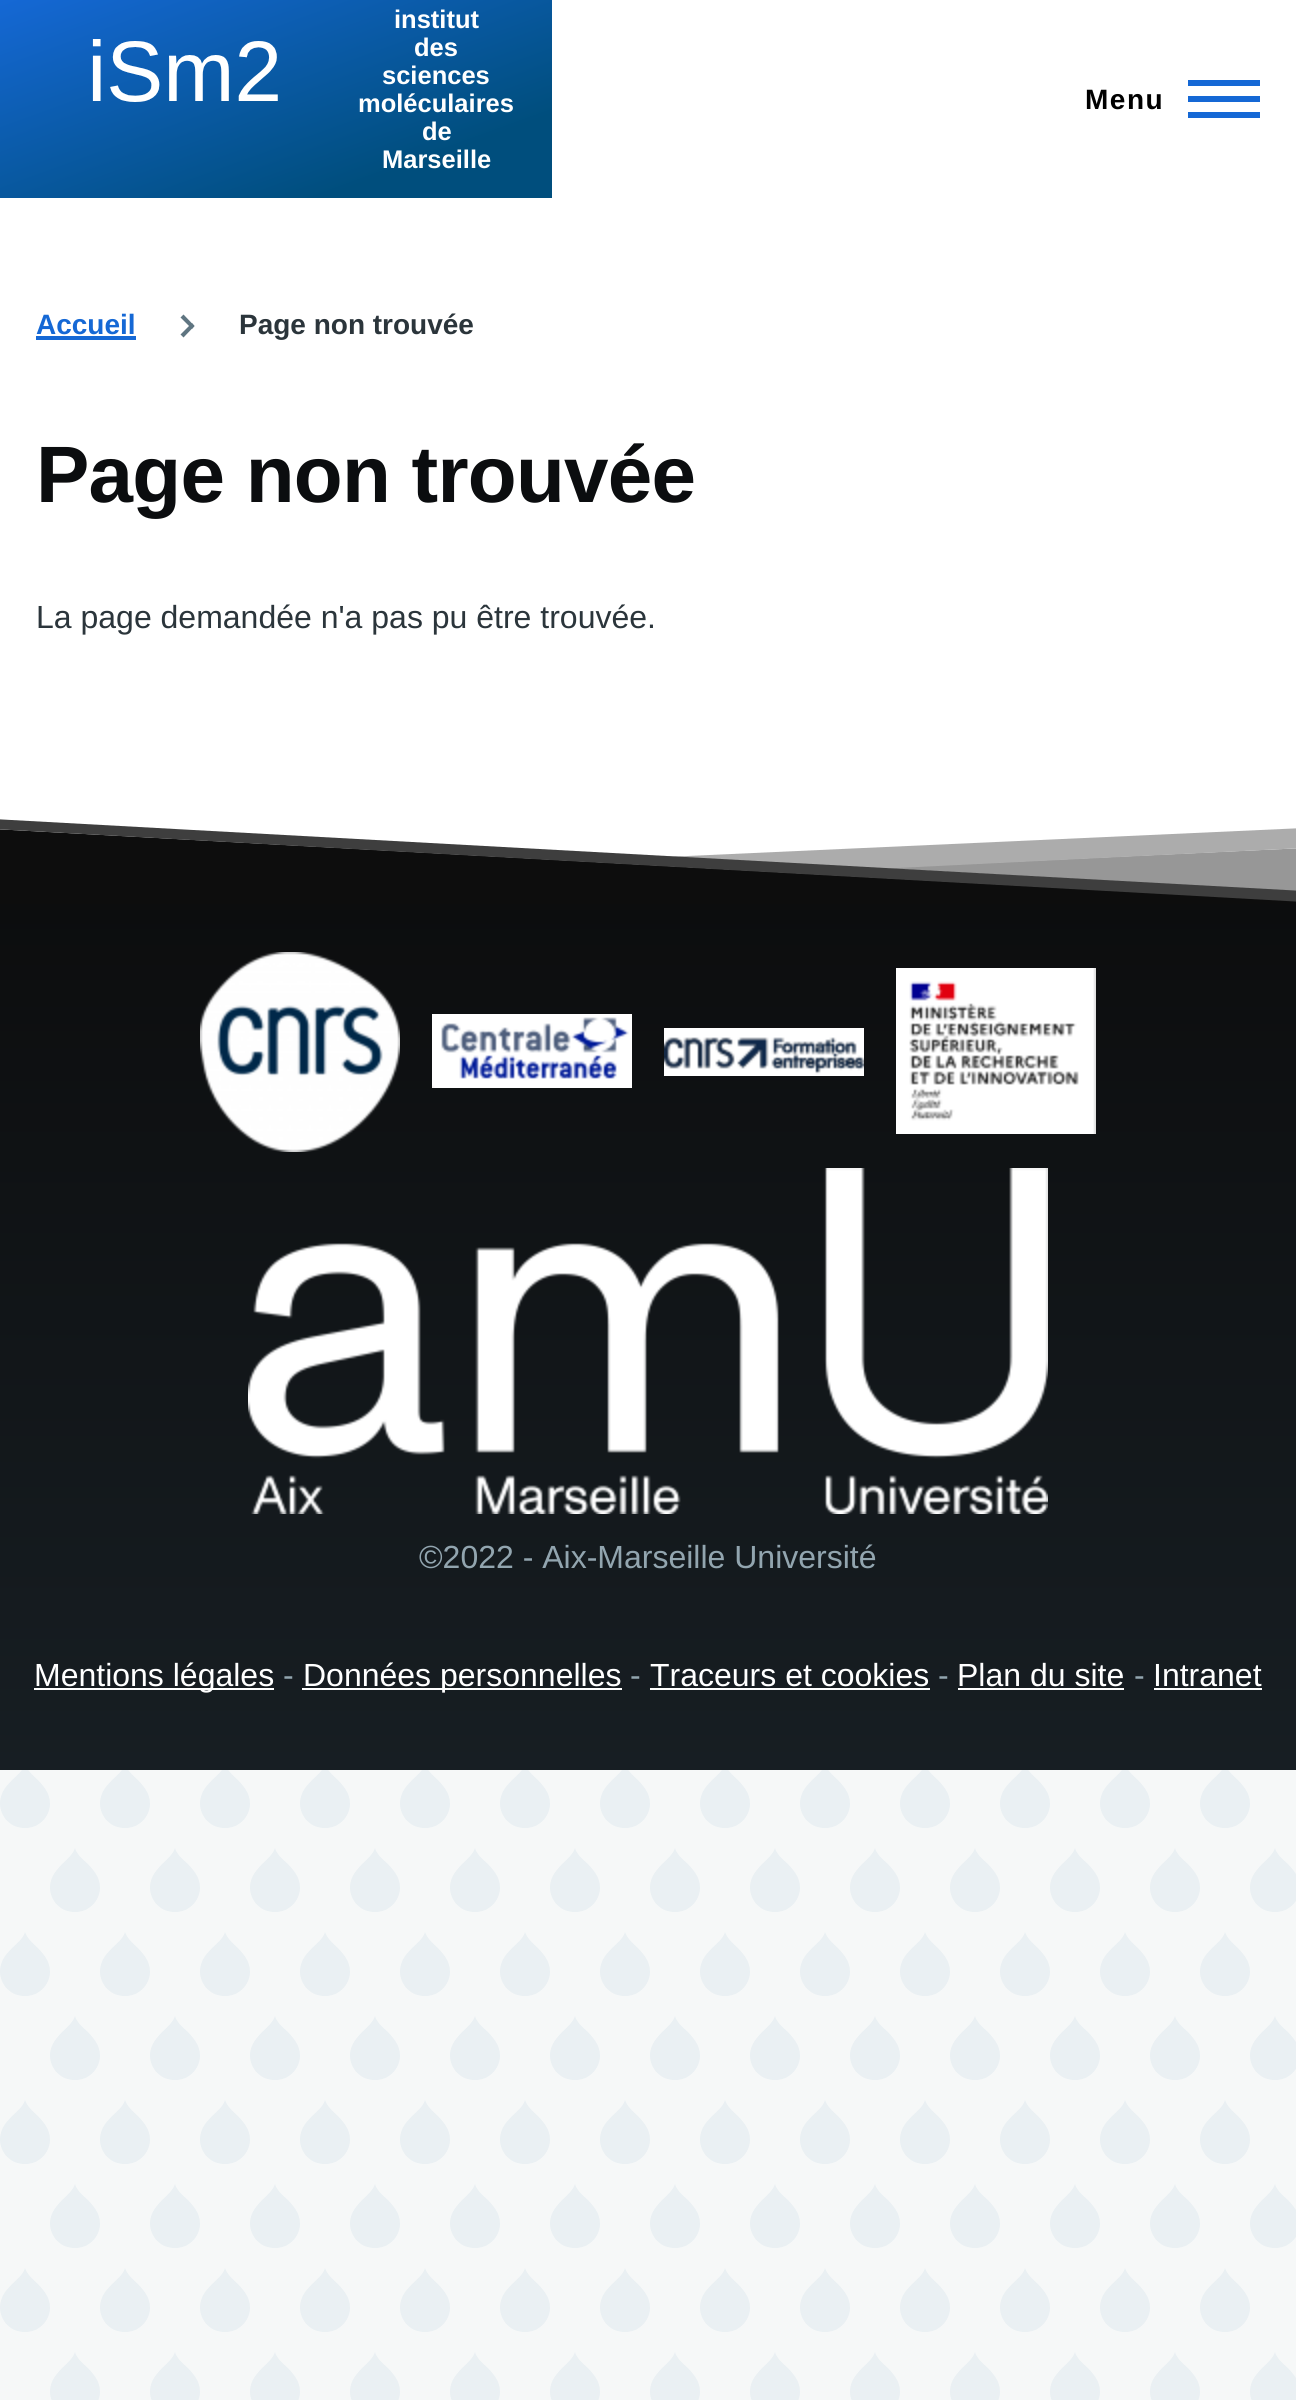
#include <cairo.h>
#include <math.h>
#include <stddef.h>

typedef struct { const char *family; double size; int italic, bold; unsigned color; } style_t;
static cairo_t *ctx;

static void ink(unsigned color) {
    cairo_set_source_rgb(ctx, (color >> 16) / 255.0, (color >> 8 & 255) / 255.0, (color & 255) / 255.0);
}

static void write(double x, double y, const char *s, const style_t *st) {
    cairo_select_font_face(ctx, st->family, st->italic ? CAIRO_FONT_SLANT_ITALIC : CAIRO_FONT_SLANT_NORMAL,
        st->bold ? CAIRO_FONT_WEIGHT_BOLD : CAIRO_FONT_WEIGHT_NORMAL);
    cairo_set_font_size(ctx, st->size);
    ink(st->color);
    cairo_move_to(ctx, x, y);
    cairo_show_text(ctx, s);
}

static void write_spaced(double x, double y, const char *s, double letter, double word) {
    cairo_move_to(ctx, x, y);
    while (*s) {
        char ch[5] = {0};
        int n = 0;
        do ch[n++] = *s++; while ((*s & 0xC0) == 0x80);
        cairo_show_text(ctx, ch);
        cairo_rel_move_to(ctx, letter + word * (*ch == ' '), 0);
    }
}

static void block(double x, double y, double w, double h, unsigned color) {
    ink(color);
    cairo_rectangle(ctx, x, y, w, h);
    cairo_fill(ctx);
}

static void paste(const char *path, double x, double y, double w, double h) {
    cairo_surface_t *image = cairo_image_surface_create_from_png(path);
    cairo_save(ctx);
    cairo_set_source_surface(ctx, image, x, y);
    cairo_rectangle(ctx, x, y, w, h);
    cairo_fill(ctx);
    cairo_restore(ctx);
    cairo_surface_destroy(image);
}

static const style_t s1 = {"Liberation Sans", 25.5, 0, 1, 0xffffff};
static const style_t s2 = {"Liberation Sans", 28, 0, 1, 0x1568d5};
static const style_t s3 = {"Liberation Sans", 28, 0, 1, 0x2b353b};
static const style_t s4 = {"Liberation Sans", 32, 0, 0, 0x2b353b};
static const style_t s5 = {"Liberation Sans", 32, 0, 0, 0x92a5af};
static const style_t s6 = {"Liberation Sans", 32, 0, 0, 0xffffff};

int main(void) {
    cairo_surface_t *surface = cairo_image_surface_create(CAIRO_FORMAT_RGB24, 1296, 2400);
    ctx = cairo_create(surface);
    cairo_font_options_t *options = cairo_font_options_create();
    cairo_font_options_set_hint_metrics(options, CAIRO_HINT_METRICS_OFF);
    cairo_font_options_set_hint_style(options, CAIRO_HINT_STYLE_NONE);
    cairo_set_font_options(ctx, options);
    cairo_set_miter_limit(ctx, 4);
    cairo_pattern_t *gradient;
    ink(0xf6f8f8);
    cairo_paint(ctx);
    paste("pic1.png", 0, 1770, 1296, 630);
    block(0, 0, 1296, 897, 0xffffff);
    gradient = cairo_pattern_create_linear(212, -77, 340, 275);
    cairo_pattern_add_color_stop_rgba(gradient, 0, 0.082, 0.408, 0.835, 1);
    cairo_pattern_add_color_stop_rgba(gradient, 0.79, 0, 0.306, 0.49, 1);
    cairo_set_source(ctx, gradient);
    cairo_pattern_destroy(gradient);
    cairo_rectangle(ctx, 0, 0, 552, 198);
    cairo_fill(ctx);
    paste("pic2.png", 92, 39, 186, 63);
    write(394, 28, "institut", &s1);
    write(414, 56, "des", &s1);
    write(382, 84, "sciences", &s1);
    write(358, 112, "moléculaires", &s1);
    write(422, 140, "de", &s1);
    write(382, 168, "Marseille", &s1);
    cairo_set_font_size(ctx, 28);
    ink(0x000000);
    write_spaced(1085, 109, "Menu", 1.5, 0);
    block(1188, 96, 72, 6, 0x1568d5);
    block(1188, 80, 72, 6, 0x1568d5);
    block(1188, 112, 72, 6, 0x1568d5);
    write(36, 334, "Accueil", &s2);
    block(36, 336, 100, 4, 0x1568d5);
    ink(0x5f7581);
    cairo_new_path(ctx);
    cairo_move_to(ctx, 183.5, 314.5);
    cairo_line_to(ctx, 194.5, 326);
    cairo_line_to(ctx, 192, 329);
    cairo_line_to(ctx, 180.5, 317.5);
    cairo_close_path(ctx);
    cairo_fill(ctx);
    cairo_new_path(ctx);
    cairo_move_to(ctx, 192, 323);
    cairo_line_to(ctx, 194.5, 326);
    cairo_line_to(ctx, 183.5, 337.5);
    cairo_line_to(ctx, 180.5, 334.5);
    cairo_close_path(ctx);
    cairo_fill(ctx);
    write(239, 334, "Page non trouvée", &s3);
    cairo_set_font_size(ctx, 80);
    ink(0x0b0d0f);
    write_spaced(36, 502, "Page non trouvée", -0.75, 0);
    write(36, 628, "La page demandée n'a pas pu être trouvée.", &s4);
    gradient = cairo_pattern_create_linear(648, 904, 648, 1770);
    cairo_pattern_add_color_stop_rgba(gradient, 0, 0.047, 0.051, 0.055, 1);
    cairo_pattern_add_color_stop_rgba(gradient, 1, 0.09, 0.118, 0.137, 1);
    cairo_set_source(ctx, gradient);
    cairo_pattern_destroy(gradient);
    cairo_rectangle(ctx, 0, 904, 1296, 866);
    cairo_fill(ctx);
    ink(0x979797);
    cairo_new_path(ctx);
    cairo_move_to(ctx, 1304, 848);
    cairo_line_to(ctx, 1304, 892);
    cairo_line_to(ctx, 876, 868);
    cairo_close_path(ctx);
    cairo_fill(ctx);
    ink(0xacacac);
    cairo_new_path(ctx);
    cairo_move_to(ctx, 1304, 828);
    cairo_line_to(ctx, 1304, 848);
    cairo_line_to(ctx, 876, 869);
    cairo_line_to(ctx, 665, 857);
    cairo_close_path(ctx);
    cairo_fill(ctx);
    ink(0x0d0d0d);
    cairo_new_path(ctx);
    cairo_move_to(ctx, -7, 904);
    cairo_line_to(ctx, -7, 829);
    cairo_line_to(ctx, 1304, 901);
    cairo_line_to(ctx, 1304, 904);
    cairo_close_path(ctx);
    cairo_fill(ctx);
    ink(0x3e3e3e);
    cairo_new_path(ctx);
    cairo_move_to(ctx, -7, 819);
    cairo_line_to(ctx, 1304, 891);
    cairo_line_to(ctx, 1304, 902);
    cairo_line_to(ctx, -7, 829);
    cairo_close_path(ctx);
    cairo_fill(ctx);
    paste("pic3.png", 200, 952, 200, 200);
    paste("pic4.png", 432, 1014, 200, 74);
    paste("pic5.png", 664, 1028, 200, 48);
    paste("pic6.png", 896, 968, 200, 166);
    paste("pic7.png", 248, 1168, 800, 346);
    write(419, 1568, "©2022 - Aix-Marseille Université", &s5);
    block(34, 1688, 240, 2, 0xffffff);
    write(34, 1686, "Mentions légales", &s6);
    write(283, 1686, "-", &s5);
    block(302, 1688, 320, 2, 0xffffff);
    write(303, 1686, "Données personnelles", &s6);
    write(630, 1686, "-", &s5);
    write(650, 1686, "Traceurs et cookies", &s6);
    block(650, 1688, 280, 2, 0xffffff);
    write(938, 1686, "-", &s5);
    write(957, 1686, "Plan du site", &s6);
    block(958, 1688, 166, 2, 0xffffff);
    write(1134, 1686, "-", &s5);
    write(1153, 1686, "Intranet", &s6);
    block(1154, 1688, 108, 2, 0xffffff);
    cairo_surface_write_to_png(surface, "screenshot.png");
    cairo_font_options_destroy(options);
    cairo_destroy(ctx);
    cairo_surface_destroy(surface);
    return 0;
}
